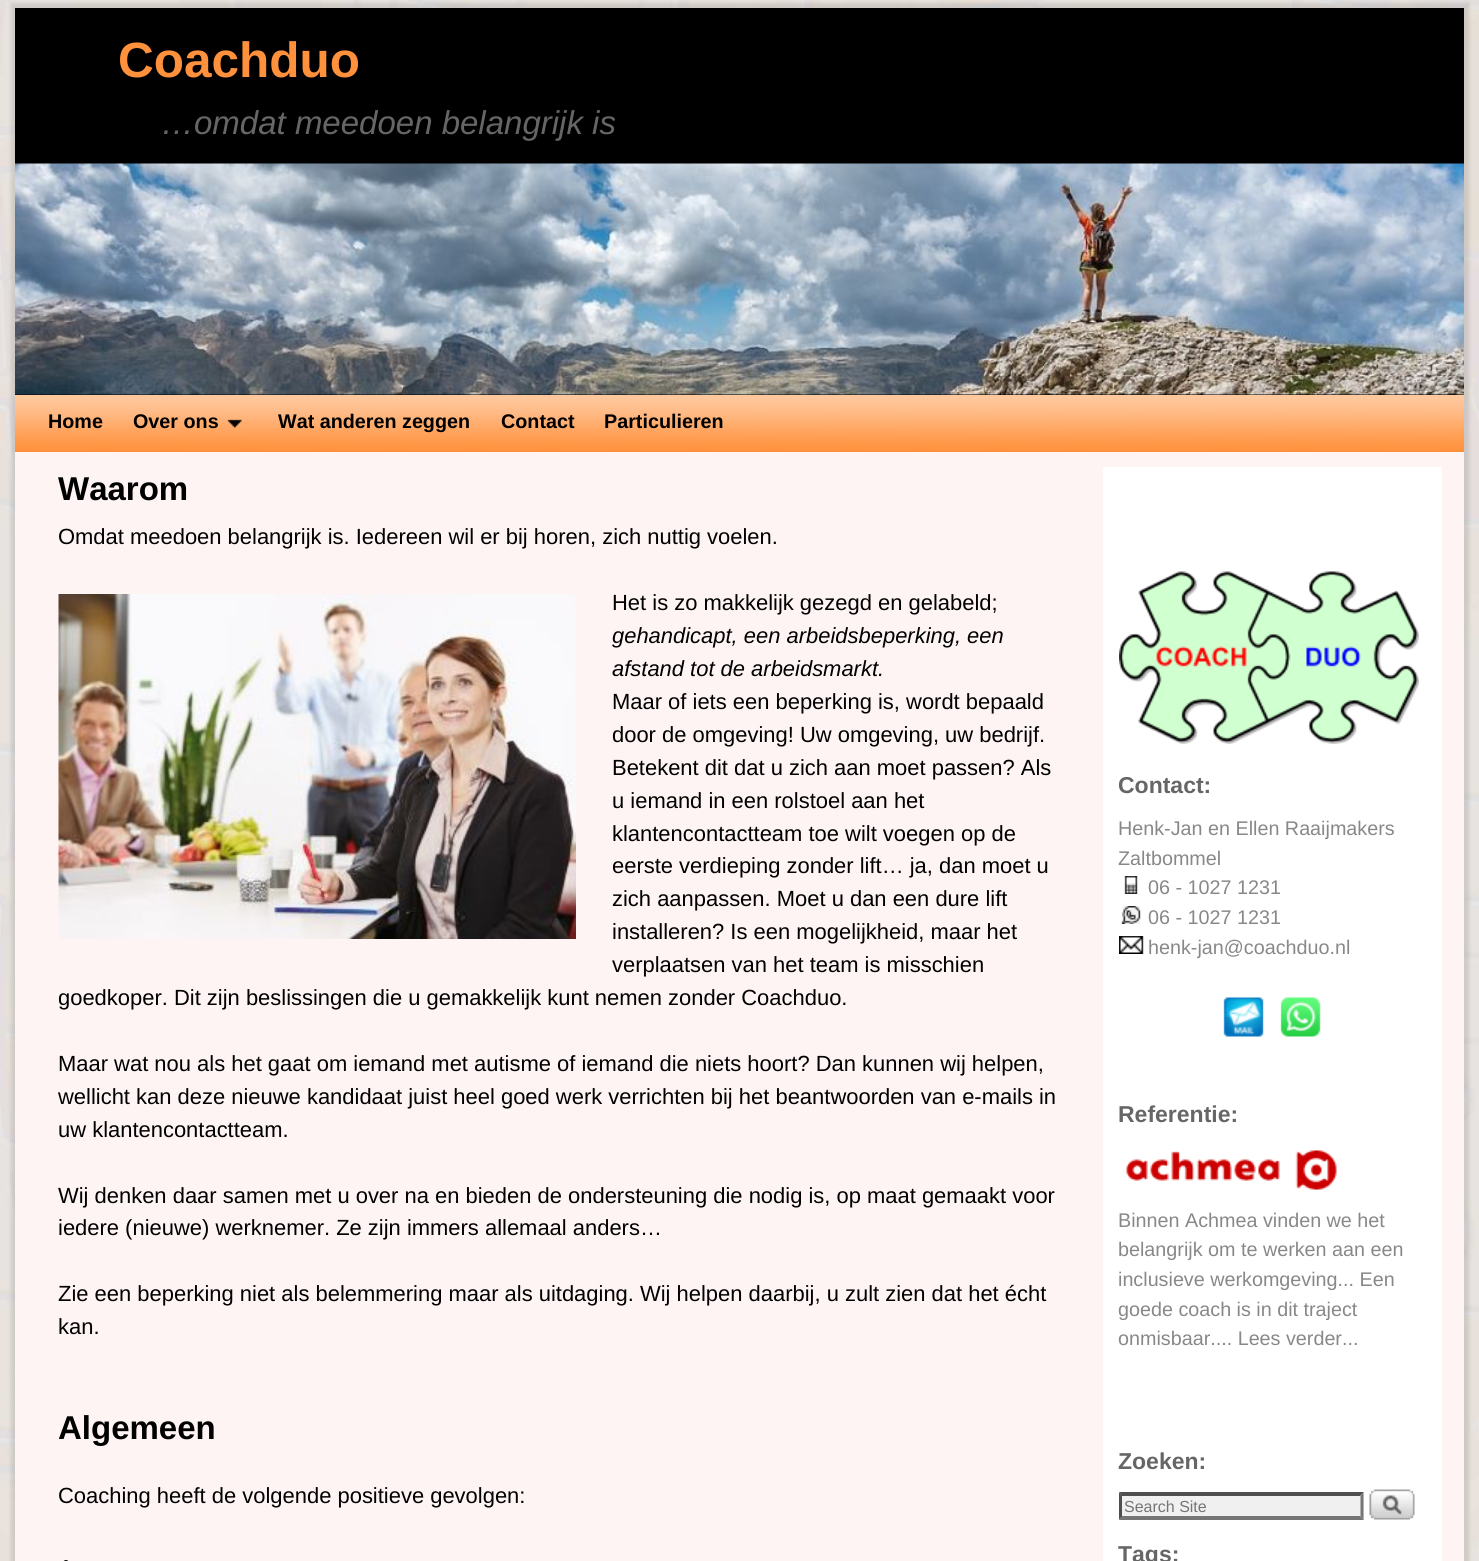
#include <cairo.h>
#include <math.h>
#include <stddef.h>

typedef struct { const char *family; double size; int italic, bold; unsigned color; } style_t;
static cairo_t *ctx;

static void ink(unsigned color) {
    cairo_set_source_rgb(ctx, (color >> 16) / 255.0, (color >> 8 & 255) / 255.0, (color & 255) / 255.0);
}

static void write(double x, double y, const char *s, const style_t *st) {
    cairo_select_font_face(ctx, st->family, st->italic ? CAIRO_FONT_SLANT_ITALIC : CAIRO_FONT_SLANT_NORMAL,
        st->bold ? CAIRO_FONT_WEIGHT_BOLD : CAIRO_FONT_WEIGHT_NORMAL);
    cairo_set_font_size(ctx, st->size);
    ink(st->color);
    cairo_move_to(ctx, x, y);
    cairo_show_text(ctx, s);
}

static void block(double x, double y, double w, double h, unsigned color) {
    ink(color);
    cairo_rectangle(ctx, x, y, w, h);
    cairo_fill(ctx);
}

static void round_path(double x, double y, double w, double h, double r) {
    cairo_new_sub_path(ctx);
    cairo_arc(ctx, x + w - r, y + h - r, r, 0, M_PI / 2);
    cairo_arc(ctx, x + r, y + h - r, r, M_PI / 2, M_PI);
    cairo_arc(ctx, x + r, y + r, r, M_PI, 1.5 * M_PI);
    cairo_arc(ctx, x + w - r, y + r, r, 1.5 * M_PI, 2 * M_PI);
    cairo_close_path(ctx);
}

static void blur_box(double x, double y, double w, double h, double r, double blur, double alpha) {
    cairo_push_group_with_content(ctx, CAIRO_CONTENT_ALPHA);
    cairo_set_operator(ctx, CAIRO_OPERATOR_SOURCE);
    for (int i = 15; i >= -15 && fmin(w, h) + blur * i / 3 > 0; i -= 2) {
        double e = blur * i / 6;
        cairo_set_source_rgba(ctx, 0, 0, 0, alpha * erfc((i - 1) / 8.5) / 2);
        round_path(x - e, y - e, w + 2 * e, h + 2 * e, fmax(0, fmin(r + e + blur * .6, fmin(w, h) / 2 + e)));
        cairo_fill(ctx);
    }
    cairo_pattern_t *soft = cairo_pop_group(ctx);
    cairo_mask(ctx, soft);
    cairo_pattern_destroy(soft);
}

static void paste(const char *path, double x, double y, double w, double h) {
    cairo_surface_t *image = cairo_image_surface_create_from_png(path);
    cairo_save(ctx);
    cairo_set_source_surface(ctx, image, x, y);
    cairo_rectangle(ctx, x, y, w, h);
    cairo_fill(ctx);
    cairo_restore(ctx);
    cairo_surface_destroy(image);
}

static const style_t s1 = {"Liberation Sans", 49.5, 0, 1, 0xff913c};
static const style_t s2 = {"Liberation Sans", 33, 1, 0, 0x666666};
static const style_t s3 = {"Liberation Sans", 19.75, 0, 1, 0x000000};
static const style_t s4 = {"Liberation Sans", 33, 0, 1, 0x000000};
static const style_t s5 = {"Liberation Sans", 21.95, 0, 0, 0x000000};
static const style_t s6 = {"Liberation Sans", 21.95, 1, 0, 0x000000};
static const style_t s7 = {"Liberation Sans", 23, 0, 1, 0x666666};
static const style_t s8 = {"Liberation Sans", 19.75, 0, 0, 0x888888};
static const style_t s9 = {"Liberation Sans", 16, 0, 0, 0x757575};

int main(void) {
    cairo_surface_t *surface = cairo_image_surface_create(CAIRO_FORMAT_RGB24, 1479, 1561);
    ctx = cairo_create(surface);
    cairo_font_options_t *options = cairo_font_options_create();
    cairo_font_options_set_hint_metrics(options, CAIRO_HINT_METRICS_OFF);
    cairo_font_options_set_hint_style(options, CAIRO_HINT_STYLE_NONE);
    cairo_set_font_options(ctx, options);
    cairo_set_miter_limit(ctx, 4);
    ink(0xffffff);
    cairo_paint(ctx);
    paste("pic1.png", 0, 0, 1479, 1561);
    ink(0x7f7f7f);
    blur_box(11, 3, 1458, 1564, 0, 2, 0.25);
    block(15, 452, 1449, 1109, 0xfff4f4);
    block(15, 8, 1449, 387, 0x000000);
    write(118, 77, "Coachduo", &s1);
    write(161, 134, "…omdat meedoen belangrijk is", &s2);
    paste("pic2.png", 15, 163, 1449, 232);
    block(15, 395, 1449, 57, 0xff913c);
    paste("pic3.png", 15, 395, 1449, 55);
    write(48, 428, "Home", &s3);
    write(133, 428, "Over ons", &s3);
    paste("pic4.png", 227, 419, 15, 9);
    write(278, 428, "Wat anderen zeggen", &s3);
    write(501, 428, "Contact", &s3);
    write(604, 428, "Particulieren", &s3);
    write(58, 500, "Waarom", &s4);
    write(58, 544, "Omdat meedoen belangrijk is. Iedereen wil er bij horen, zich nuttig voelen.", &s5);
    paste("pic5.png", 58, 594, 518, 345);
    write(612, 610, "Het is zo makkelijk gezegd en gelabeld;", &s5);
    write(612, 643, "gehandicapt, een arbeidsbeperking, een", &s6);
    write(612, 676, "afstand tot de arbeidsmarkt.", &s6);
    write(612, 709, "Maar of iets een beperking is, wordt bepaald", &s5);
    write(612, 742, "door de omgeving! Uw omgeving, uw bedrijf.", &s5);
    write(612, 775, "Betekent dit dat u zich aan moet passen? Als", &s5);
    write(612, 808, "u iemand in een rolstoel aan het", &s5);
    write(612, 841, "klantencontactteam toe wilt voegen op de", &s5);
    write(612, 873, "eerste verdieping zonder lift… ja, dan moet u", &s5);
    write(612, 906, "zich aanpassen. Moet u dan een dure lift", &s5);
    write(612, 939, "installeren? Is een mogelijkheid, maar het", &s5);
    write(612, 972, "verplaatsen van het team is misschien", &s5);
    write(58, 1005, "goedkoper. Dit zijn beslissingen die u gemakkelijk kunt nemen zonder Coachduo.", &s5);
    write(58, 1071, "Maar wat nou als het gaat om iemand met autisme of iemand die niets hoort? Dan kunnen wij helpen,", &s5);
    write(58, 1104, "wellicht kan deze nieuwe kandidaat juist heel goed werk verrichten bij het beantwoorden van e-mails in", &s5);
    write(58, 1137, "uw klantencontactteam.", &s5);
    write(58, 1203, "Wij denken daar samen met u over na en bieden de ondersteuning die nodig is, op maat gemaakt voor", &s5);
    write(58, 1235, "iedere (nieuwe) werknemer. Ze zijn immers allemaal anders…", &s5);
    write(58, 1301, "Zie een beperking niet als belemmering maar als uitdaging. Wij helpen daarbij, u zult zien dat het écht", &s5);
    write(58, 1334, "kan.", &s5);
    write(58, 1439, "Algemeen", &s4);
    write(58, 1503, "Coaching heeft de volgende positieve gevolgen:", &s5);
    round_path(63, 1560, 6, 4, 3);
    cairo_fill(ctx);
    block(1103, 467, 339, 1094, 0xffffff);
    paste("pic6.png", 1119, 571, 300, 173);
    write(1118, 793, "Contact:", &s7);
    write(1118, 835, "Henk-Jan en Ellen Raaijmakers", &s8);
    write(1118, 865, "Zaltbommel", &s8);
    paste("pic7.png", 1124, 876, 14, 18);
    write(1148, 894, "06 - 1027 1231", &s8);
    paste("pic8.png", 1121, 906, 20, 18);
    write(1148, 924, "06 - 1027 1231", &s8);
    paste("pic9.png", 1119, 936, 25, 18);
    write(1148, 954, "henk-jan@coachduo.nl", &s8);
    paste("pic10.png", 1223, 997, 41, 40);
    paste("pic11.png", 1280, 997, 41, 40);
    write(1118, 1122, "Referentie:", &s7);
    paste("pic12.png", 1126, 1150, 211, 40);
    write(1118, 1227, "Binnen Achmea vinden we het", &s8);
    write(1118, 1256, "belangrijk om te werken aan een", &s8);
    write(1118, 1286, "inclusieve werkomgeving... Een", &s8);
    write(1118, 1316, "goede coach is in dit traject", &s8);
    write(1118, 1345, "onmisbaar.... Lees verder...", &s8);
    write(1118, 1469, "Zoeken:", &s7);
    block(1119, 1493, 245, 27, 0xf0f0f0);
    ink(0x4f4f4f);
    cairo_new_path(ctx);
    cairo_move_to(ctx, 1119, 1492);
    cairo_line_to(ctx, 1364, 1492);
    cairo_line_to(ctx, 1360, 1496);
    cairo_line_to(ctx, 1122, 1496);
    cairo_close_path(ctx);
    cairo_fill(ctx);
    ink(0x767676);
    cairo_new_path(ctx);
    cairo_move_to(ctx, 1363.5, 1492.5);
    cairo_line_to(ctx, 1363.5, 1519.5);
    cairo_line_to(ctx, 1360.5, 1516.5);
    cairo_line_to(ctx, 1360.5, 1495.5);
    cairo_close_path(ctx);
    cairo_fill(ctx);
    cairo_new_path(ctx);
    cairo_move_to(ctx, 1364, 1520);
    cairo_line_to(ctx, 1119, 1520);
    cairo_line_to(ctx, 1122, 1516);
    cairo_line_to(ctx, 1360, 1516);
    cairo_close_path(ctx);
    cairo_fill(ctx);
    ink(0x4f4f4f);
    cairo_new_path(ctx);
    cairo_move_to(ctx, 1119, 1519.5);
    cairo_line_to(ctx, 1119, 1492.5);
    cairo_line_to(ctx, 1122, 1495.5);
    cairo_line_to(ctx, 1122, 1516.5);
    cairo_close_path(ctx);
    cairo_fill(ctx);
    write(1124, 1512, "Search Site", &s9);
    paste("pic13.png", 1369, 1489, 46, 31);
    write(1118, 1562, "Tags:", &s7);
    cairo_surface_write_to_png(surface, "screenshot.png");
    cairo_font_options_destroy(options);
    cairo_destroy(ctx);
    cairo_surface_destroy(surface);
    return 0;
}
